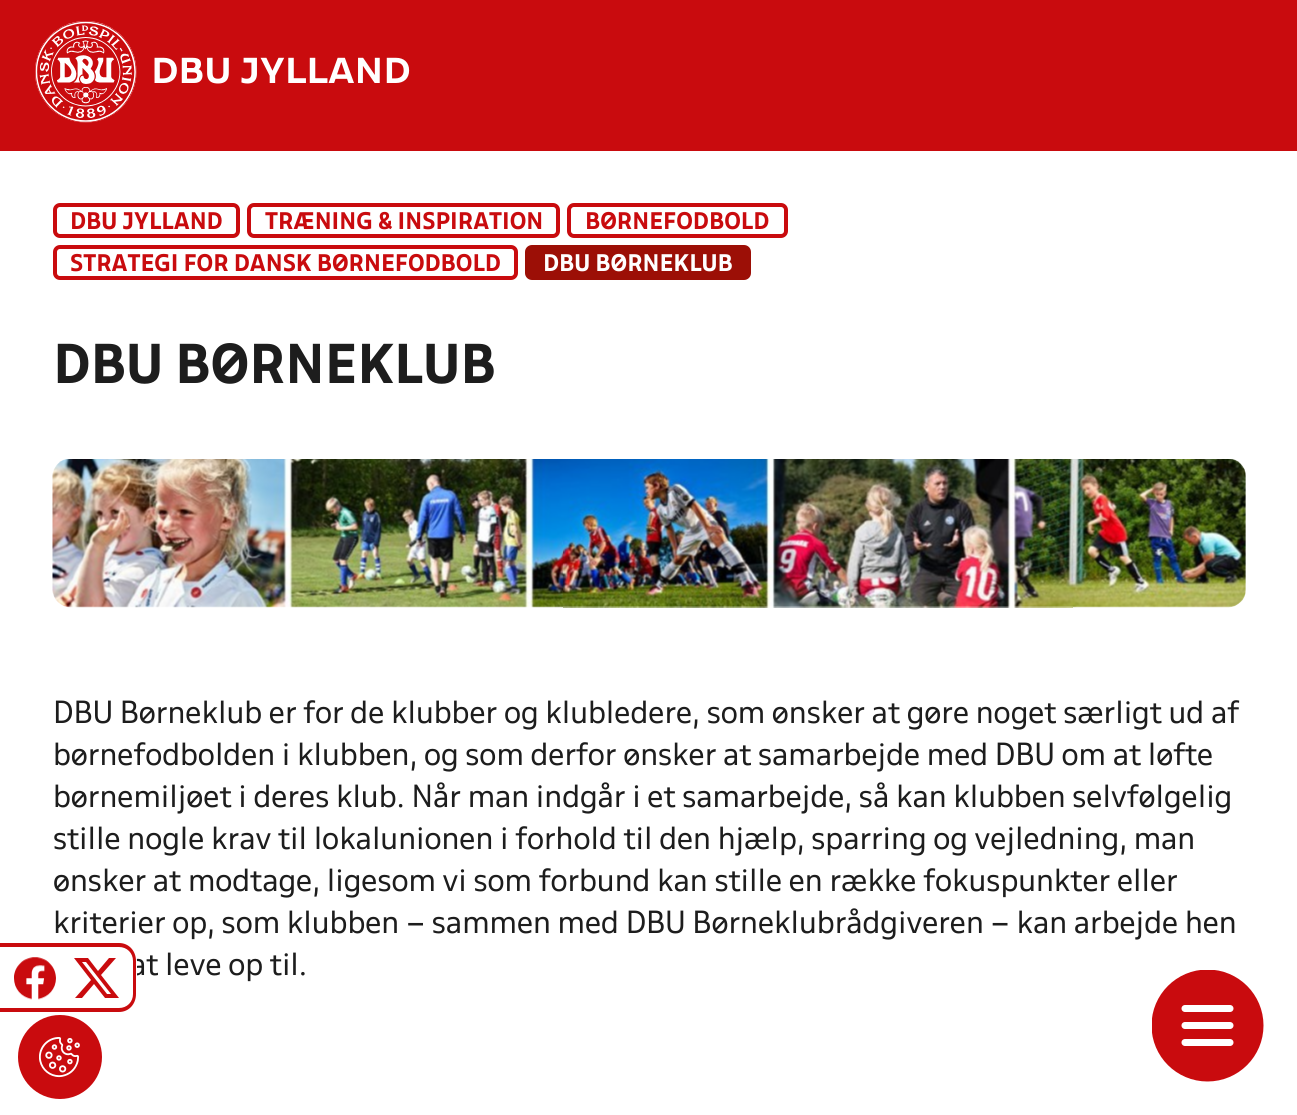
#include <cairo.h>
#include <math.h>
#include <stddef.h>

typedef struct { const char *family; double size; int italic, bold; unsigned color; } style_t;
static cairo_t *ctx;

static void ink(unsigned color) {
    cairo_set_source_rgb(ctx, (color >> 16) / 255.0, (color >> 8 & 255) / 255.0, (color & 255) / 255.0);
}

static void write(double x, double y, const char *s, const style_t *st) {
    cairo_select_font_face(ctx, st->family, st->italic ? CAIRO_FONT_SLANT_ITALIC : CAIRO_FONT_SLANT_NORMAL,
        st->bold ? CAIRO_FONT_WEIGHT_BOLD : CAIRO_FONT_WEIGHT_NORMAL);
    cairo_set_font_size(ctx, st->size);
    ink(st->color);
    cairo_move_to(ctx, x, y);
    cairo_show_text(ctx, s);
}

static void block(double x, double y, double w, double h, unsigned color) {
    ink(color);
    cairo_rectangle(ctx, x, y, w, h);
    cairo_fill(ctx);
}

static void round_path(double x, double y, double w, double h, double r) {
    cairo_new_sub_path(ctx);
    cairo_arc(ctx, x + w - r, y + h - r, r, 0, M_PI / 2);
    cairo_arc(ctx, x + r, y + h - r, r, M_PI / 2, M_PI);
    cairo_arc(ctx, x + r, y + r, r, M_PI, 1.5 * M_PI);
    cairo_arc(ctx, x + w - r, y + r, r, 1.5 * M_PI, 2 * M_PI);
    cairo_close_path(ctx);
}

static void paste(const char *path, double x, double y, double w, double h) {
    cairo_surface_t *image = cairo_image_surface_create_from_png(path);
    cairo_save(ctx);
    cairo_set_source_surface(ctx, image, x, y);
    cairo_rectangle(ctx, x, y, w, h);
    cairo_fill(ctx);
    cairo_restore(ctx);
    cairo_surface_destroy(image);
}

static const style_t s1 = {"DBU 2", 31.5, 0, 1, 0xffffff};
static const style_t s2 = {"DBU", 21, 0, 1, 0xc90b0e};
static const style_t s3 = {"DBU", 21, 0, 1, 0xffffff};
static const style_t s4 = {"DBU", 28, 0, 0, 0x1d1d1d};
static const style_t s5 = {"DBU", 49, 0, 1, 0x1d1d1d};

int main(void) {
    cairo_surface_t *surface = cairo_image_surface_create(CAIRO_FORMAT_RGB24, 1297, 1115);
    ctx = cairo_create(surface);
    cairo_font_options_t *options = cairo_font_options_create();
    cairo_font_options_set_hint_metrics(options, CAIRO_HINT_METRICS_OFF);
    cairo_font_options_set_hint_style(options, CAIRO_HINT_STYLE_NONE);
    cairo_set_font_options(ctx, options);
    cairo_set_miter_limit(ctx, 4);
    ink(0xffffff);
    cairo_paint(ctx);
    block(0, 0, 1297, 151, 0xc90b0e);
    paste("pic1.png", 35, 21, 102, 102);
    write(151, 83, "DBU JYLLAND", &s1);
    round_path(55, 205, 183, 31, 5);
    ink(0xc90b0e);
    cairo_set_line_width(ctx, 4);
    cairo_stroke(ctx);
    write(70, 229, "DBU JYLLAND", &s2);
    round_path(249, 205, 309, 31, 5);
    cairo_stroke(ctx);
    write(265, 229, "TRÆNING & INSPIRATION", &s2);
    round_path(569, 205, 217, 31, 5);
    cairo_stroke(ctx);
    write(585, 229, "BØRNEFODBOLD", &s2);
    round_path(55, 247, 461, 31, 5);
    cairo_stroke(ctx);
    write(70, 271, "STRATEGI FOR DANSK BØRNEFODBOLD", &s2);
    ink(0x9c0f06);
    round_path(527, 247, 222, 31, 5);
    cairo_fill_preserve(ctx);
    cairo_stroke(ctx);
    write(543, 271, "DBU BØRNEKLUB", &s3);
    write(130, 975, "at leve op til.", &s4);
    ink(0xffffff);
    cairo_new_path(ctx);
    cairo_move_to(ctx, 0, 943);
    cairo_line_to(ctx, 119, 943);
    cairo_curve_to(ctx, 129, 943, 137, 951, 137, 961);
    cairo_line_to(ctx, 137, 994);
    cairo_curve_to(ctx, 137, 1004, 129, 1012, 119, 1012);
    cairo_line_to(ctx, 0, 1012);
    cairo_close_path(ctx);
    cairo_fill(ctx);
    ink(0xc90b0e);
    cairo_set_fill_rule(ctx, CAIRO_FILL_RULE_EVEN_ODD);
    cairo_new_path(ctx);
    cairo_move_to(ctx, 0, 943);
    cairo_line_to(ctx, 119, 943);
    cairo_curve_to(ctx, 129, 943, 136, 951, 136, 961);
    cairo_line_to(ctx, 136, 994);
    cairo_curve_to(ctx, 136, 1004, 129, 1012, 119, 1012);
    cairo_line_to(ctx, 0, 1012);
    cairo_close_path(ctx);
    cairo_move_to(ctx, 0, 947);
    cairo_line_to(ctx, 119, 947);
    cairo_curve_to(ctx, 127, 947, 133, 953, 133, 961);
    cairo_line_to(ctx, 133, 994);
    cairo_curve_to(ctx, 133, 1002, 127, 1008, 119, 1008);
    cairo_line_to(ctx, 0, 1008);
    cairo_close_path(ctx);
    cairo_fill(ctx);
    paste("pic2.png", 14, 957, 42, 43);
    cairo_set_fill_rule(ctx, CAIRO_FILL_RULE_WINDING);
    cairo_new_path(ctx);
    cairo_move_to(ctx, 109, 958);
    cairo_line_to(ctx, 116, 958);
    cairo_line_to(ctx, 101, 975);
    cairo_line_to(ctx, 119, 998);
    cairo_line_to(ctx, 105, 998);
    cairo_line_to(ctx, 94, 984);
    cairo_line_to(ctx, 82, 998);
    cairo_line_to(ctx, 75, 998);
    cairo_line_to(ctx, 91, 980);
    cairo_line_to(ctx, 74, 958);
    cairo_line_to(ctx, 88, 958);
    cairo_line_to(ctx, 98, 971);
    cairo_close_path(ctx);
    cairo_move_to(ctx, 107, 994);
    cairo_line_to(ctx, 111, 994);
    cairo_line_to(ctx, 86, 962);
    cairo_line_to(ctx, 82, 962);
    cairo_close_path(ctx);
    cairo_fill(ctx);
    write(53, 383, "DBU BØRNEKLUB", &s5);
    paste("pic3.png", 52, 459, 1194, 149);
    write(53, 723, "DBU Børneklub er for de klubber og klubledere, som ønsker at gøre noget særligt ud af", &s4);
    write(53, 765, "børnefodbolden i klubben, og som derfor ønsker at samarbejde med DBU om at løfte", &s4);
    write(53, 807, "børnemiljøet i deres klub. Når man indgår i et samarbejde, så kan klubben selvfølgelig", &s4);
    write(53, 849, "stille nogle krav til lokalunionen i forhold til den hjælp, sparring og vejledning, man", &s4);
    write(53, 891, "ønsker at modtage, ligesom vi som forbund kan stille en række fokuspunkter eller", &s4);
    write(53, 933, "kriterier op, som klubben – sammen med DBU Børneklubrådgiveren – kan arbejde hen", &s4);
    ink(0xc90b0e);
    cairo_new_path(ctx);
    cairo_arc(ctx, 60, 1057, 42, 0, 2 * M_PI);
    cairo_fill(ctx);
    paste("pic4.png", 39, 1037, 41, 41);
    cairo_save(ctx);
    cairo_rectangle(ctx, 1152, 970, 112, 112);
    cairo_clip(ctx);
    cairo_arc(ctx, 1207.5, 1025.5, 56, 0, 2 * M_PI);
    cairo_fill(ctx);
    cairo_restore(ctx);
    cairo_new_path(ctx);
    cairo_move_to(ctx, 1230, 1042.5);
    cairo_line_to(ctx, 1185, 1042.5);
    cairo_move_to(ctx, 1230, 1025.5);
    cairo_line_to(ctx, 1185, 1025.5);
    cairo_move_to(ctx, 1230, 1008.5);
    cairo_line_to(ctx, 1185, 1008.5);
    ink(0xffffff);
    cairo_set_line_width(ctx, 7);
    cairo_set_line_cap(ctx, CAIRO_LINE_CAP_ROUND);
    cairo_stroke(ctx);
    cairo_surface_write_to_png(surface, "screenshot.png");
    cairo_font_options_destroy(options);
    cairo_destroy(ctx);
    cairo_surface_destroy(surface);
    return 0;
}
